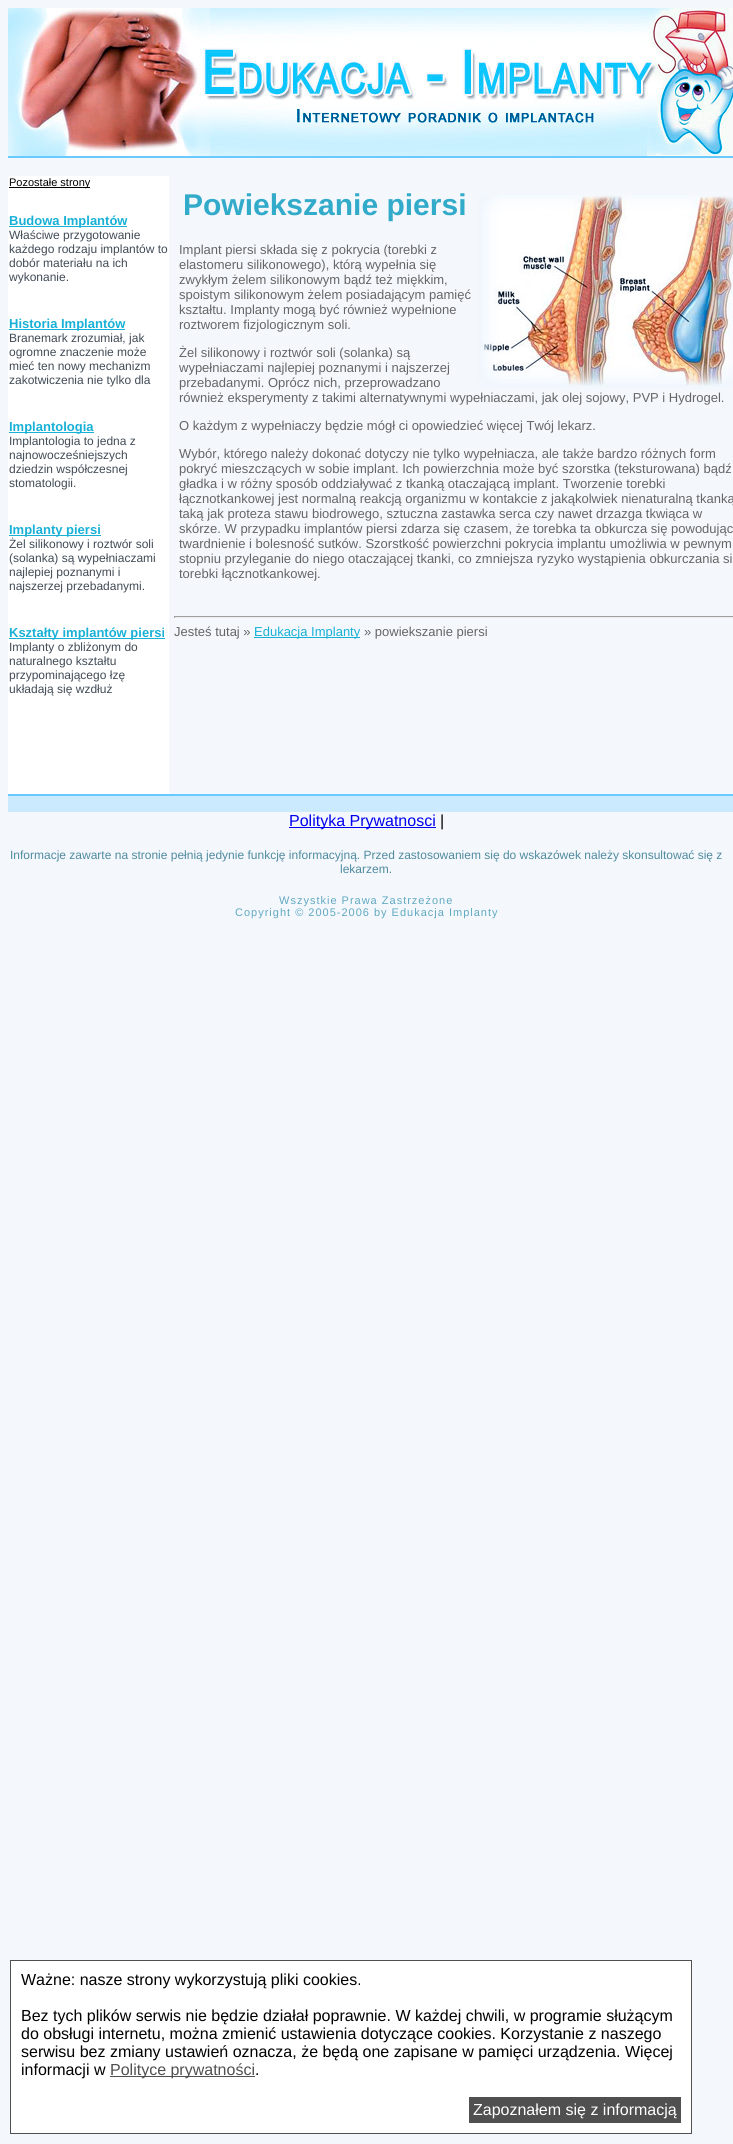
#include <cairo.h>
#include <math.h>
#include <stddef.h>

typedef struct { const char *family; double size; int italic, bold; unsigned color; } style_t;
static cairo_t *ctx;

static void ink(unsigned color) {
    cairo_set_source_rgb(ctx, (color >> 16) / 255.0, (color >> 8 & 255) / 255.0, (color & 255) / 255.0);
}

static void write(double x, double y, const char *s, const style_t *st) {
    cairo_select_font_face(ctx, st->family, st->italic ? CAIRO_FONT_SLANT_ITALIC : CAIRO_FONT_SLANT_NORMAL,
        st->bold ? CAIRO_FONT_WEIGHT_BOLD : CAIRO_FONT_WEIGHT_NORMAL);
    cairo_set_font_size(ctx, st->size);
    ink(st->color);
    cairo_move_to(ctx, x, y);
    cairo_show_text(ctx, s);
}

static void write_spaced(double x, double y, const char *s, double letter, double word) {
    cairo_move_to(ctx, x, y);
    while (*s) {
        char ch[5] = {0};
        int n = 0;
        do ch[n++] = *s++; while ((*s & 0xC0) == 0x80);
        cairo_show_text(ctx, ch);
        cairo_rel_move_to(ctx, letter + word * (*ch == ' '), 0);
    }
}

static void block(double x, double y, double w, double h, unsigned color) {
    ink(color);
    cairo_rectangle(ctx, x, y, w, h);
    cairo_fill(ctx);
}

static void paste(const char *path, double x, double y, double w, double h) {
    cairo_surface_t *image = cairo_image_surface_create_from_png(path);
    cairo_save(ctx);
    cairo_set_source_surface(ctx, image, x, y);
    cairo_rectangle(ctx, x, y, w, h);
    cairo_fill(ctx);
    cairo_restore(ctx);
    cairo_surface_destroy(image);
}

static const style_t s1 = {"Liberation Sans", 11, 0, 0, 0x000000};
static const style_t s2 = {"Liberation Sans", 13, 0, 1, 0x18b0d7};
static const style_t s3 = {"Liberation Sans", 12, 0, 0, 0x414b56};
static const style_t s4 = {"Liberation Sans", 30, 0, 1, 0x32aac9};
static const style_t s5 = {"Liberation Sans", 13, 0, 0, 0x656565};
static const style_t s6 = {"Liberation Sans", 13, 0, 0, 0x18b0d7};
static const style_t s7 = {"Liberation Sans", 16, 0, 0, 0x0000ee};
static const style_t s8 = {"Liberation Sans", 16, 0, 0, 0x000000};
static const style_t s9 = {"Liberation Sans", 12, 0, 0, 0x4f8a9e};
static const style_t s10 = {"Liberation Sans", 16, 0, 0, 0x505050};
static const style_t s11 = {"Liberation Sans", 16, 0, 0, 0xffffff};

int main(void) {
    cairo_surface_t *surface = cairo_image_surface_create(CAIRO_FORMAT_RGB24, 733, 2144);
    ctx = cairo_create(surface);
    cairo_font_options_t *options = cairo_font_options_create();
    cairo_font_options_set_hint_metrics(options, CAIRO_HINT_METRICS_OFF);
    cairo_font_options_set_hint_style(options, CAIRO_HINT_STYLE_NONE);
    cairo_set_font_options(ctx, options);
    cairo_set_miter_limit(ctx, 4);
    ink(0xf4f8fd);
    cairo_paint(ctx);
    paste("pic1.png", 8, 8, 725, 148);
    block(8, 156, 725, 2, 0x69caff);
    block(8, 176, 161, 618, 0xffffff);
    block(9, 187, 81, 1, 0x000000);
    write(9, 186, "Pozostałe strony", &s1);
    block(9, 226, 118, 1, 0x18b0d7);
    write(9, 225, "Budowa Implantów", &s2);
    write(9, 239, "Właściwe przygotowanie", &s3);
    write(9, 253, "każdego rodzaju implantów to", &s3);
    write(9, 267, "dobór materiału na ich", &s3);
    write(9, 281, "wykonanie.", &s3);
    block(9, 329, 116, 1, 0x18b0d7);
    write(9, 328, "Historia Implantów", &s2);
    write(9, 342, "Branemark zrozumiał, jak", &s3);
    write(9, 356, "ogromne znaczenie może", &s3);
    write(9, 370, "mieć ten nowy mechanizm", &s3);
    write(9, 384, "zakotwiczenia nie tylko dla", &s3);
    block(9, 432, 85, 1, 0x18b0d7);
    write(9, 431, "Implantologia", &s2);
    write(9, 445, "Implantologia to jedna z", &s3);
    write(9, 459, "najnowocześniejszych", &s3);
    write(9, 473, "dziedzin współczesnej", &s3);
    write(9, 487, "stomatologii.", &s3);
    block(9, 535, 92, 1, 0x18b0d7);
    write(9, 534, "Implanty piersi", &s2);
    write(9, 548, "Żel silikonowy i roztwór soli", &s3);
    write(9, 562, "(solanka) są wypełniaczami", &s3);
    write(9, 576, "najlepiej poznanymi i", &s3);
    write(9, 590, "najszerzej przebadanymi.", &s3);
    block(9, 638, 156, 1, 0x18b0d7);
    write(9, 637, "Kształty implantów piersi", &s2);
    write(9, 651, "Implanty o zbliżonym do", &s3);
    write(9, 665, "naturalnego kształtu", &s3);
    write(9, 679, "przypominającego łzę", &s3);
    write(9, 693, "układają się wzdłuż", &s3);
    write(183, 215, "Powiekszanie piersi", &s4);
    paste("pic2.png", 478, 195, 255, 193);
    write(179, 254, "Implant piersi składa się z pokrycia (torebki z", &s5);
    write(179, 269, "elastomeru silikonowego), którą wypełnia się", &s5);
    write(179, 284, "zwykłym żelem silikonowym bądź też miękkim,", &s5);
    write(179, 299, "spoistym silikonowym żelem posiadającym pamięć", &s5);
    write(179, 314, "kształtu. Implanty mogą być również wypełnione", &s5);
    write(179, 329, "roztworem fizjologicznym soli.", &s5);
    write(179, 357, "Żel silikonowy i roztwór soli (solanka) są", &s5);
    write(179, 372, "wypełniaczami najlepiej poznanymi i najszerzej", &s5);
    write(179, 387, "przebadanymi. Oprócz nich, przeprowadzano", &s5);
    write(179, 402, "również eksperymenty z takimi alternatywnymi wypełniaczami, jak olej sojowy, PVP i Hydrogel.", &s5);
    write(179, 430, "O każdym z wypełniaczy będzie mógł ci opowiedzieć więcej Twój lekarz.", &s5);
    write(179, 458, "Wybór, którego należy dokonać dotyczy nie tylko wypełniacza, ale także bardzo różnych form", &s5);
    write(179, 473, "pokryć mieszczących w sobie implant. Ich powierzchnia może być szorstka (teksturowana) bądź", &s5);
    write(179, 488, "gładka i w różny sposób oddziaływać z tkanką otaczającą implant. Tworzenie torebki", &s5);
    write(179, 503, "łącznotkankowej jest normalną reakcją organizmu w kontakcie z jakąkolwiek nienaturalną tkanką", &s5);
    write(179, 518, "taką jak proteza stawu biodrowego, sztuczna zastawka serca czy nawet drzazga tkwiąca w", &s5);
    write(179, 533, "skórze. W przypadku implantów piersi zdarza się czasem, że torebka ta obkurcza się powodując", &s5);
    write(179, 548, "twardnienie i bolesność sutków. Szorstkość powierzchni pokrycia implantu umożliwia w pewnym", &s5);
    write(179, 563, "stopniu przyleganie do niego otaczającej tkanki, co zmniejsza ryzyko wystąpienia obkurczania si", &s5);
    write(179, 578, "torebki łącznotkankowej.", &s5);
    block(174, 616, 559, 1, 0x9f9f9f);
    block(174, 617, 559, 1, 0xeeeeee);
    block(174, 616, 1, 2, 0x9f9f9f);
    write(174, 636, "Jesteś tutaj »", &s5);
    block(254, 637, 106, 1, 0x18b0d7);
    write(254, 636, "Edukacja Implanty", &s6);
    write(364, 636, "» powiekszanie piersi", &s5);
    block(8, 796, 725, 16, 0xcbeafe);
    block(8, 794, 725, 2, 0x69caff);
    block(289, 827, 147, 1, 0x0000ee);
    write(289, 826, "Polityka Prywatnosci", &s7);
    write(440, 826, "|", &s8);
    write(10, 859, "Informacje zawarte na stronie pełnią jedynie funkcję informacyjną. Przed zastosowaniem się do wskazówek należy skonsultować się z", &s9);
    write(340, 873, "lekarzem.", &s9);
    cairo_set_font_size(ctx, 11);
    ink(0x60a8c0);
    write_spaced(279, 904, "Wszystkie Prawa Zastrzeżone", 1, 0);
    write_spaced(235, 916, "Copyright © 2005-2006 by Edukacja Implanty", 1, 0);
    ink(0xffffff);
    cairo_rectangle(ctx, 10.5, 1960.5, 681, 173);
    cairo_fill_preserve(ctx);
    ink(0x505050);
    cairo_set_line_width(ctx, 1);
    cairo_stroke(ctx);
    write(21, 1985, "Ważne: nasze strony wykorzystują pliki cookies.", &s8);
    write(21, 2021, "Bez tych plików serwis nie będzie działał poprawnie. W każdej chwili, w programie służącym", &s8);
    write(21, 2039, "do obsługi internetu, można zmienić ustawienia dotyczące cookies. Korzystanie z naszego", &s8);
    write(21, 2057, "serwisu bez zmiany ustawień oznacza, że będą one zapisane w pamięci urządzenia. Więcej", &s8);
    write(21, 2075, "informacji w", &s8);
    block(110, 2076, 145, 1, 0x505050);
    write(110, 2075, "Polityce prywatności", &s10);
    write(255, 2075, ".", &s8);
    block(469, 2097, 212, 26, 0x505050);
    write(473, 2115, "Zapoznałem się z informacją", &s11);
    cairo_surface_write_to_png(surface, "screenshot.png");
    cairo_font_options_destroy(options);
    cairo_destroy(ctx);
    cairo_surface_destroy(surface);
    return 0;
}
